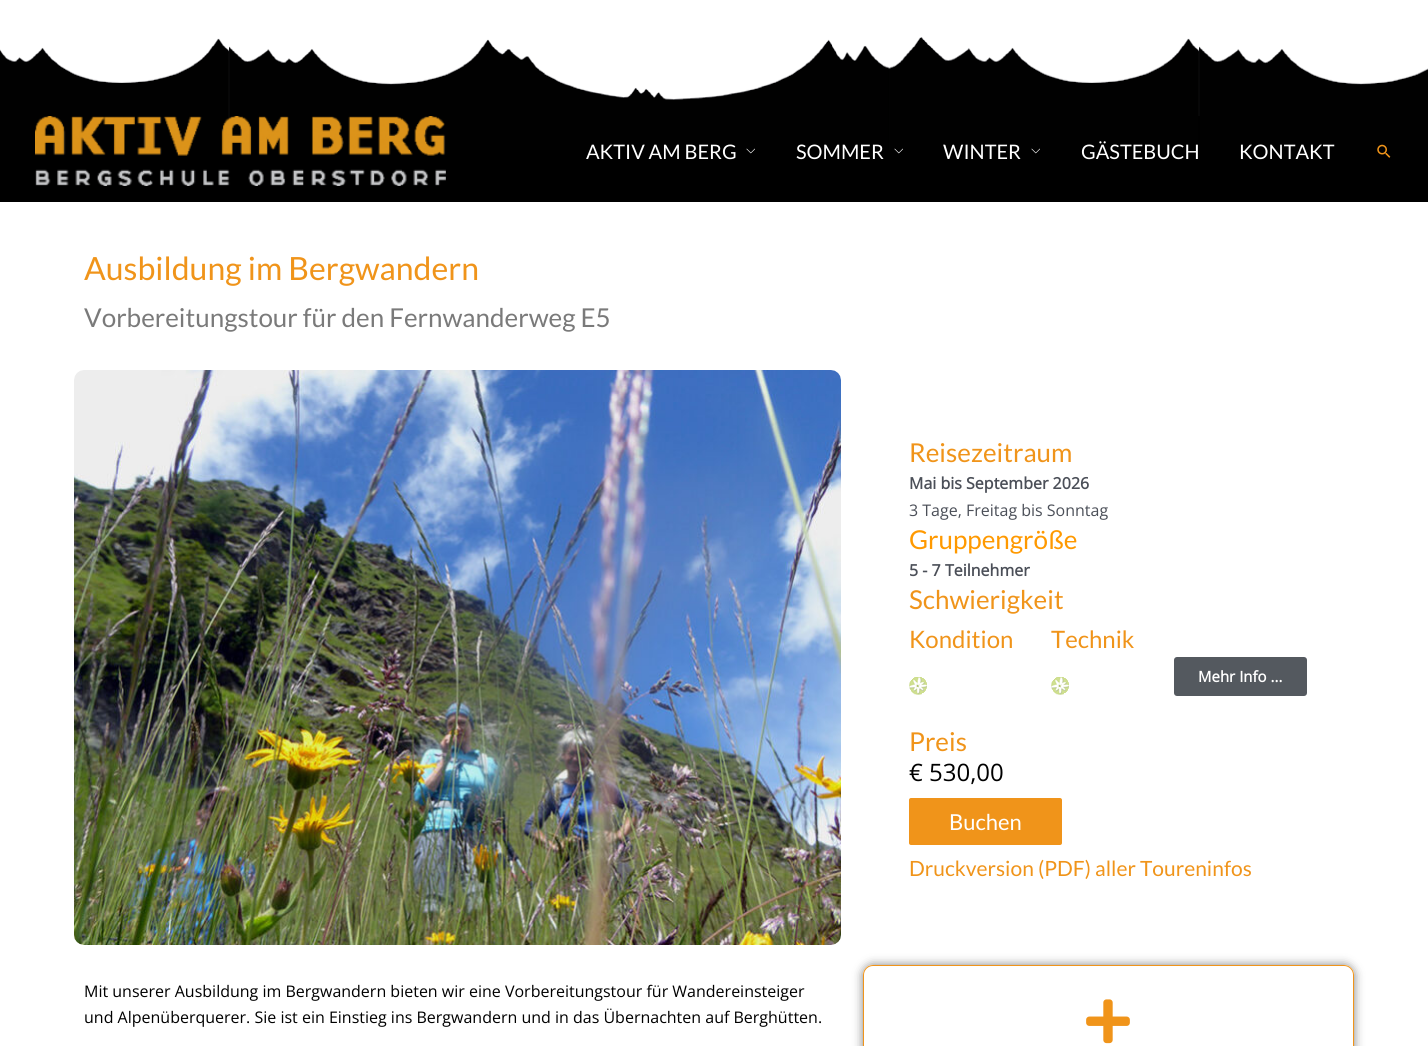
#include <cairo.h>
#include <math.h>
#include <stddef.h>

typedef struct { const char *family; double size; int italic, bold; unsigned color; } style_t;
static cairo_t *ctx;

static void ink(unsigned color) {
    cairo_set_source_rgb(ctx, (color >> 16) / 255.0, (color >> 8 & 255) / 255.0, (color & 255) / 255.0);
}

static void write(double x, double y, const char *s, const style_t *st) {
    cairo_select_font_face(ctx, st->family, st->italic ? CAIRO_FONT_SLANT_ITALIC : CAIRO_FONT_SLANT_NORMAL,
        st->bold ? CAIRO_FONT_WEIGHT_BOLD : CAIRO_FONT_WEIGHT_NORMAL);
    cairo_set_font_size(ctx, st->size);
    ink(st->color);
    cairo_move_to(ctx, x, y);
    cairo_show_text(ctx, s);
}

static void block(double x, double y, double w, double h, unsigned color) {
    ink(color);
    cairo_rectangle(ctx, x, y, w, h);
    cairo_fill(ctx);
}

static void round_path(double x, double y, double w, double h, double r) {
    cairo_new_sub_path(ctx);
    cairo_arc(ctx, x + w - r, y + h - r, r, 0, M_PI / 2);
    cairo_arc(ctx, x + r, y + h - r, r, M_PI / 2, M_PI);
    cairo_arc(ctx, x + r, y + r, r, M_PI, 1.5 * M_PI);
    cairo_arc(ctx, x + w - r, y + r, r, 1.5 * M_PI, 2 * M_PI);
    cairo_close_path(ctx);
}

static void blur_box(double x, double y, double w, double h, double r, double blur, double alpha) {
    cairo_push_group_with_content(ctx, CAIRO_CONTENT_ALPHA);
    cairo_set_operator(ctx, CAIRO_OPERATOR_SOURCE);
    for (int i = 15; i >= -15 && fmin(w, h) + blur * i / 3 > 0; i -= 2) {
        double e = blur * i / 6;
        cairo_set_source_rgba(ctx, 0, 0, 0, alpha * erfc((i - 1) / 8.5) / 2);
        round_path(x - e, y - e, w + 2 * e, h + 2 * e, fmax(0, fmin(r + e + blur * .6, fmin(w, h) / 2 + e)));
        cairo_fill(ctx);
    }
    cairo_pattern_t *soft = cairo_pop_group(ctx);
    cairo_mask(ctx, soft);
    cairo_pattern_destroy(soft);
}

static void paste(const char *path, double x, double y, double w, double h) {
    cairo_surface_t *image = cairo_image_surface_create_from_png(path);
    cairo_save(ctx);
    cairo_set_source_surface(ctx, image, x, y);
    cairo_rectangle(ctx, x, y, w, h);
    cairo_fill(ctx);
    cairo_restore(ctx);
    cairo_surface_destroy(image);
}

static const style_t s1 = {"Lato", 20, 0, 0, 0xffffff};
static const style_t s2 = {"Lato", 32, 0, 0, 0xf0941a};
static const style_t s3 = {"Lato", 26, 0, 0, 0x7a7a7a};
static const style_t s4 = {"Lato", 26, 0, 0, 0xf0941a};
static const style_t s5 = {"Open Sans", 16, 0, 1, 0x4b4f58};
static const style_t s6 = {"Open Sans", 16, 0, 0, 0x4b4f58};
static const style_t s7 = {"Lato", 26, 0, 0, 0xff9900};
static const style_t s8 = {"Lato", 24, 0, 0, 0xf0941a};
static const style_t s9 = {"Open Sans", 15, 0, 1, 0xffffff};
static const style_t s10 = {"Open Sans", 24, 0, 0, 0x000000};
static const style_t s11 = {"Lato", 22, 0, 0, 0xffffff};
static const style_t s12 = {"Lato", 21, 0, 0, 0xf0941a};
static const style_t s13 = {"Open Sans", 16, 0, 0, 0x000000};

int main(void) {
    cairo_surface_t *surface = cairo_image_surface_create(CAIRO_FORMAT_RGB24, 1428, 1046);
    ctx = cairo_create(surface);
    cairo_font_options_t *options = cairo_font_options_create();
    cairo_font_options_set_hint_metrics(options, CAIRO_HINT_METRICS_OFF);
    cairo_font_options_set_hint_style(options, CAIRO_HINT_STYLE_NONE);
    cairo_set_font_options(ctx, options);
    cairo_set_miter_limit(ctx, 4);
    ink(0xffffff);
    cairo_paint(ctx);
    paste("pic1.png", 0, 37, 1428, 165);
    paste("pic2.png", 35, 116, 411, 70);
    block(1198, 116, 2, 34, 0x000000);
    write(586, 159, "AKTIV AM BERG", &s1);
    paste("pic3.png", 746, 148, 9, 6);
    write(796, 159, "SOMMER", &s1);
    paste("pic3.png", 894, 148, 9, 6);
    write(943, 159, "WINTER", &s1);
    paste("pic3.png", 1031, 148, 9, 6);
    write(1081, 159, "GÄSTEBUCH", &s1);
    write(1239, 159, "KONTAKT", &s1);
    paste("pic4.png", 1377, 144, 14, 14);
    write(84, 280, "Ausbildung im Bergwandern", &s2);
    write(84, 327, "Vorbereitungstour für den Fernwanderweg E5", &s3);
    paste("pic5.png", 74, 370, 767, 575);
    write(909, 462, "Reisezeitraum", &s4);
    write(909, 489, "Mai bis September 2026", &s5);
    write(909, 516, "3 Tage, Freitag bis Sonntag", &s6);
    write(909, 549, "Gruppengröße", &s7);
    write(909, 576, "5 - 7 Teilnehmer", &s5);
    write(909, 609, "Schwierigkeit", &s4);
    write(909, 648, "Kondition", &s8);
    paste("pic6.png", 909, 677, 18, 18);
    write(1051, 648, "Technik", &s8);
    paste("pic6.png", 1051, 677, 18, 18);
    ink(0x54595f);
    round_path(1174, 657, 133, 39, 3);
    cairo_fill(ctx);
    write(1198, 682, "Mehr Info ...", &s9);
    write(909, 751, "Preis", &s4);
    write(909, 781, "€ 530,00", &s10);
    ink(0xf0941a);
    round_path(909, 798, 153, 47, 2);
    cairo_fill(ctx);
    write(949, 830, "Buchen", &s11);
    write(909, 876, "Druckversion (PDF) aller Toureninfos", &s12);
    write(84, 997, "Mit unserer Ausbildung im Bergwandern bieten wir eine Vorbereitungstour für Wandereinsteiger", &s13);
    write(84, 1023, "und Alpenüberquerer. Sie ist ein Einstieg ins Bergwandern und in das Übernachten auf Berghütten.", &s13);
    cairo_save(ctx);
    cairo_set_fill_rule(ctx, CAIRO_FILL_RULE_EVEN_ODD);
    cairo_new_path(ctx);
    cairo_move_to(ctx, 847, 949);
    cairo_line_to(ctx, 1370, 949);
    cairo_line_to(ctx, 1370, 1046);
    cairo_line_to(ctx, 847, 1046);
    cairo_close_path(ctx);
    cairo_move_to(ctx, 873, 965);
    cairo_line_to(ctx, 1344, 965);
    cairo_curve_to(ctx, 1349.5, 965, 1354, 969.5, 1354, 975);
    cairo_line_to(ctx, 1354, 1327);
    cairo_curve_to(ctx, 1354, 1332.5, 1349.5, 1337, 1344, 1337);
    cairo_line_to(ctx, 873, 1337);
    cairo_curve_to(ctx, 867.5, 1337, 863, 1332.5, 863, 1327);
    cairo_line_to(ctx, 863, 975);
    cairo_curve_to(ctx, 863, 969.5, 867.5, 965, 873, 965);
    cairo_close_path(ctx);
    cairo_clip(ctx);
    ink(0x000000);
    blur_box(863, 965, 491, 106, 10, 5, 0.5);
    cairo_restore(ctx);
    round_path(863.5, 965.5, 490, 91, 9.5);
    ink(0xf0941a);
    cairo_set_line_width(ctx, 1);
    cairo_stroke(ctx);
    paste("pic7.png", 1086, 999, 44, 45);
    cairo_surface_write_to_png(surface, "screenshot.png");
    cairo_font_options_destroy(options);
    cairo_destroy(ctx);
    cairo_surface_destroy(surface);
    return 0;
}
